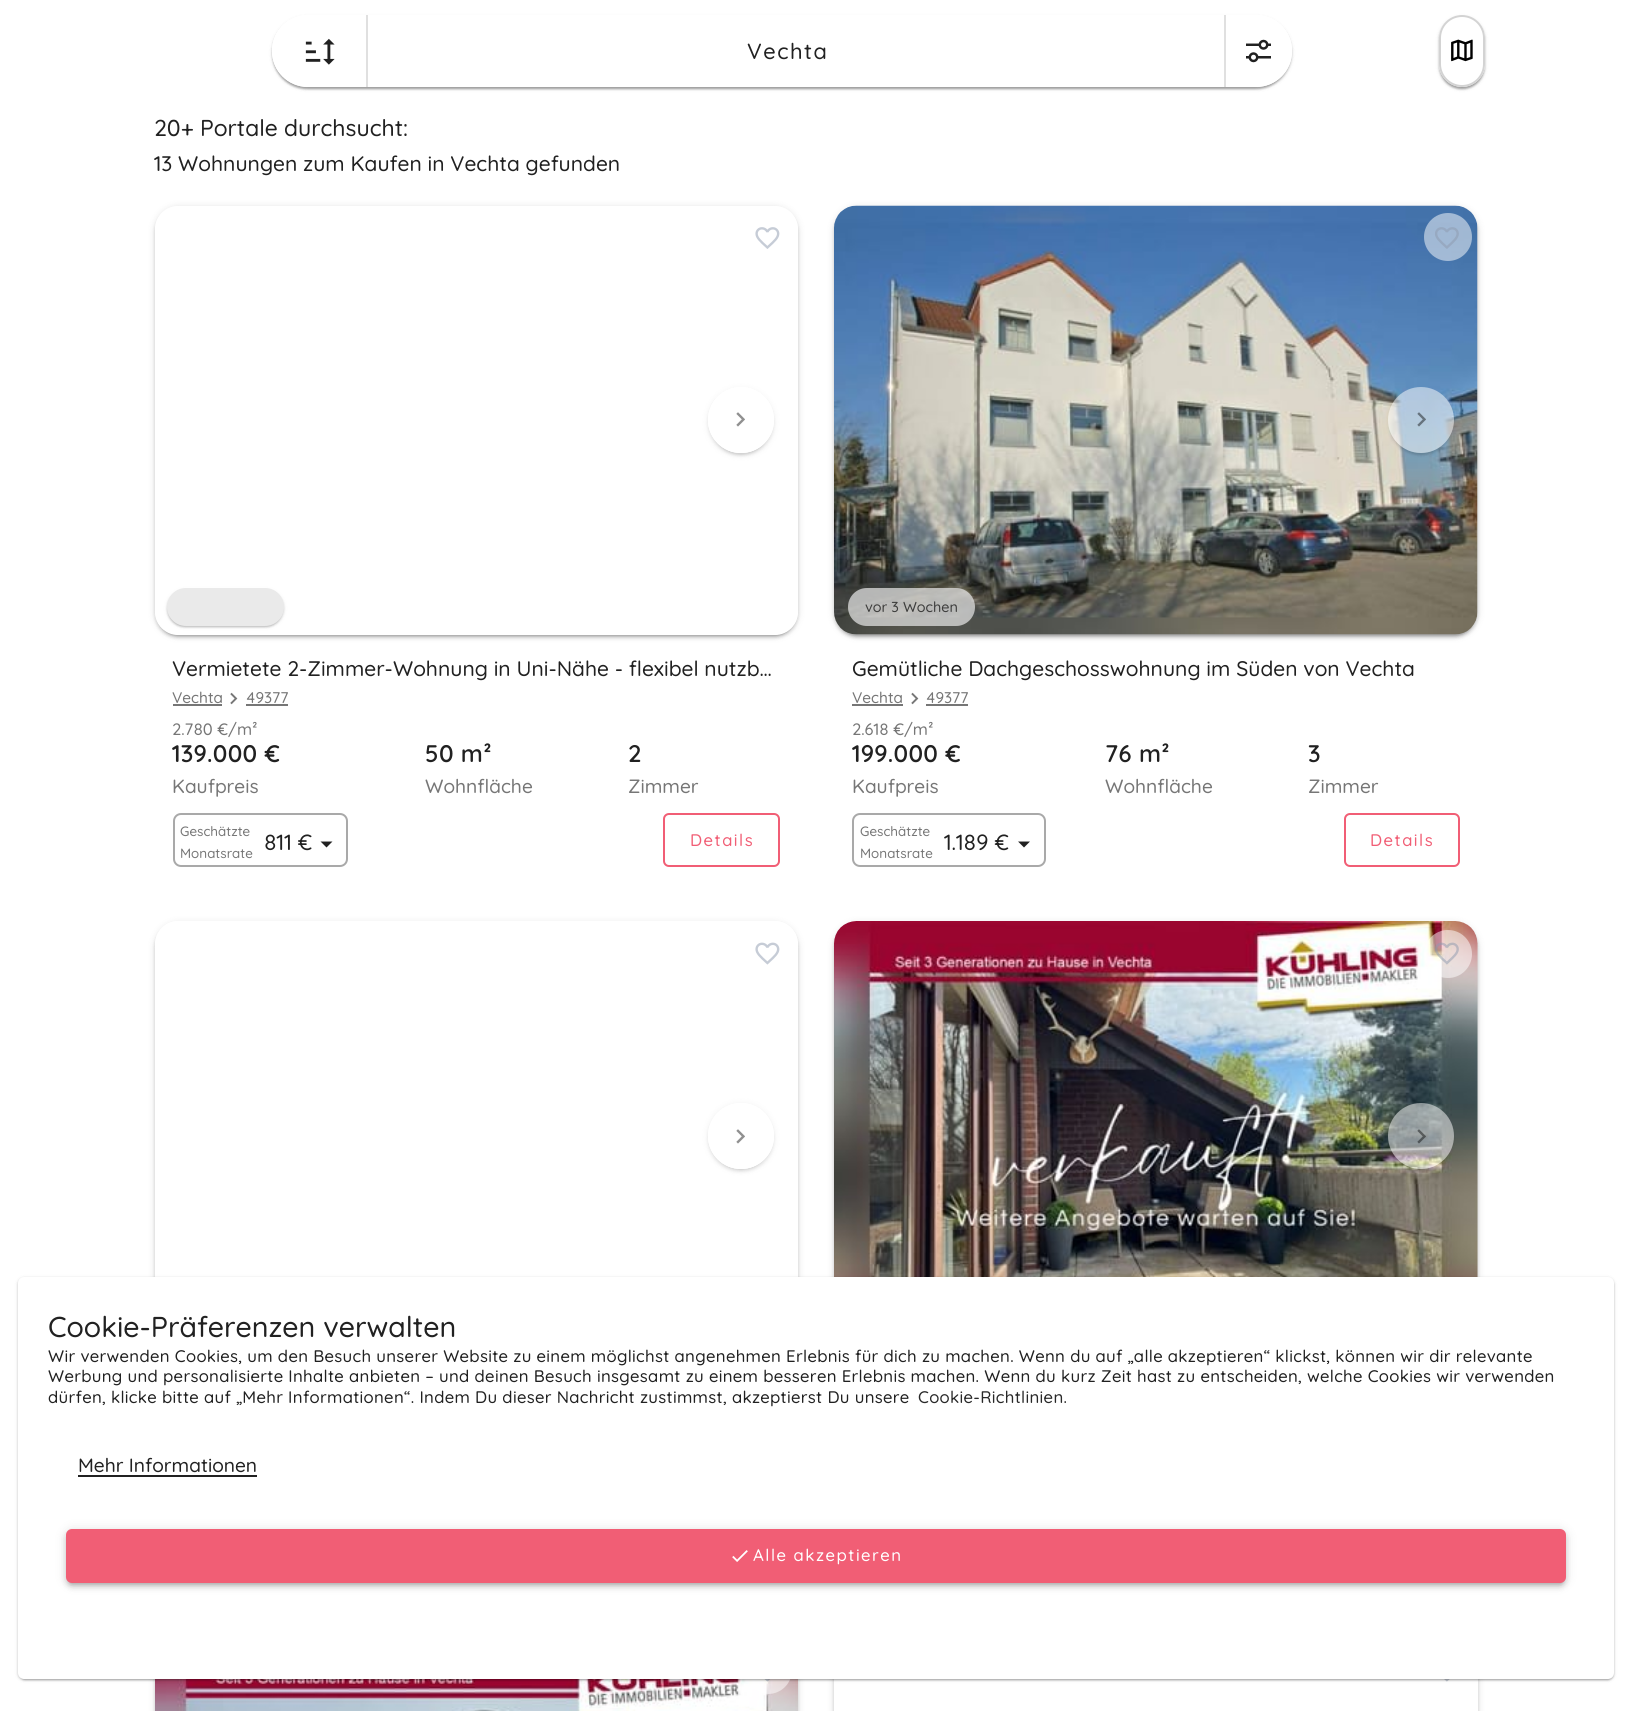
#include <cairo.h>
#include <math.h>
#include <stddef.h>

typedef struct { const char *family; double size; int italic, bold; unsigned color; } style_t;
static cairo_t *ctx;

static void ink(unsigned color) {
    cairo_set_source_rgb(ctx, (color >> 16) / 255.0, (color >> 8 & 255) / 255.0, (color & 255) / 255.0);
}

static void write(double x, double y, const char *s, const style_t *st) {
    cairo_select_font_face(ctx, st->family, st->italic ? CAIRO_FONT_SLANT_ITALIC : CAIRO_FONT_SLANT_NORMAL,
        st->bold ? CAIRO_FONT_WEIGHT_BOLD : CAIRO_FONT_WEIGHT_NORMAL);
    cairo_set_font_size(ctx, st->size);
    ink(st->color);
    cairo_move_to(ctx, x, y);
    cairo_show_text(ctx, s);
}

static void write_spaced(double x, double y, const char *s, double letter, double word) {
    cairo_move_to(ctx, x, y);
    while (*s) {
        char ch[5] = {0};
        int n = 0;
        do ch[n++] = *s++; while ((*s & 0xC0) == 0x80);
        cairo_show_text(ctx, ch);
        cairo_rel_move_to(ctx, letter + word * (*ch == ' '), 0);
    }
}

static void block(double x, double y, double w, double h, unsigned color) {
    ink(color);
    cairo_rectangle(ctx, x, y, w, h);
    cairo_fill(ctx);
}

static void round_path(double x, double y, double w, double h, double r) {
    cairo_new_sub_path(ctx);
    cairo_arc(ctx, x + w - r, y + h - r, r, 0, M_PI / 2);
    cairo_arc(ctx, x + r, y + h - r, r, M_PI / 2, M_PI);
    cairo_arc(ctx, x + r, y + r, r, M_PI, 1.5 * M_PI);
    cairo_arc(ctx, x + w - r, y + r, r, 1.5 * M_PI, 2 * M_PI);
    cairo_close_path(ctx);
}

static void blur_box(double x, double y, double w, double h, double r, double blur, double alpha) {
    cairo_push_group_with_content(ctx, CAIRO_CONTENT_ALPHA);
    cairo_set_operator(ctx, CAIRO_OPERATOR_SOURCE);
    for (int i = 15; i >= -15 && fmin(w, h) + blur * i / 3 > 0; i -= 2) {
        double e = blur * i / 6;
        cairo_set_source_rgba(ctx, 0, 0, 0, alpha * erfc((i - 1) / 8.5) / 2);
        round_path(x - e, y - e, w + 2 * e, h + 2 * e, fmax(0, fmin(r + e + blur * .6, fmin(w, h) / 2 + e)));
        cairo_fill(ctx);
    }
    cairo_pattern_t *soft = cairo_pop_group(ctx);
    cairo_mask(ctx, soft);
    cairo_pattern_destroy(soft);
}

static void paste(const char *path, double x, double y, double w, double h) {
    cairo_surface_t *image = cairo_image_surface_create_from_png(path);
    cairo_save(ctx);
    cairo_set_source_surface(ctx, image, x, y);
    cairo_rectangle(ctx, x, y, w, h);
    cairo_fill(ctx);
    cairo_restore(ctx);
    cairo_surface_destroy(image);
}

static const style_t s1 = {"Quicksand Light", 23, 0, 0, 0x212121};
static const style_t s2 = {"Quicksand Light", 21.1, 0, 0, 0x212121};
static const style_t s3 = {"Quicksand Light", 15.5, 0, 0, 0x767676};
static const style_t s4 = {"Quicksand Light", 16.5, 0, 0, 0x767676};
static const style_t s5 = {"Quicksand Light", 19.25, 0, 0, 0x767676};
static const style_t s6 = {"Quicksand Light", 13.5, 0, 0, 0x767676};
static const style_t s7 = {"Quicksand Light", 22, 0, 0, 0x212121};
static const style_t s8 = {"Quicksand Light", 14.5, 0, 0, 0x3d3d3c};
static const style_t s9 = {"Quicksand Light", 28.75, 0, 0, 0x212121};
static const style_t s10 = {"Quicksand Light", 19.25, 0, 0, 0x212121};

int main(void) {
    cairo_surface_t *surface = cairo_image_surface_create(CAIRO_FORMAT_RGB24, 1632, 1711);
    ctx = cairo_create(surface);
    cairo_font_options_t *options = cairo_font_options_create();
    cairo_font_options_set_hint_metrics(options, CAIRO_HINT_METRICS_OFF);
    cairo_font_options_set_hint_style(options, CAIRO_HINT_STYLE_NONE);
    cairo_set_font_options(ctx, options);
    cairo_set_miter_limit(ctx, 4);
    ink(0xffffff);
    cairo_paint(ctx);
    cairo_save(ctx);
    cairo_set_fill_rule(ctx, CAIRO_FILL_RULE_EVEN_ODD);
    cairo_new_path(ctx);
    cairo_move_to(ctx, 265, 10);
    cairo_line_to(ctx, 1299, 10);
    cairo_line_to(ctx, 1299, 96);
    cairo_line_to(ctx, 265, 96);
    cairo_close_path(ctx);
    cairo_move_to(ctx, 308, 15);
    cairo_line_to(ctx, 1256, 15);
    cairo_curve_to(ctx, 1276, 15, 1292, 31, 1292, 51);
    cairo_curve_to(ctx, 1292, 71, 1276, 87, 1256, 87);
    cairo_line_to(ctx, 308, 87);
    cairo_curve_to(ctx, 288, 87, 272, 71, 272, 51);
    cairo_curve_to(ctx, 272, 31, 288, 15, 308, 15);
    cairo_close_path(ctx);
    cairo_clip(ctx);
    ink(0x000000);
    blur_box(272, 17, 1020, 72, 36, 2, 0.12);
    cairo_restore(ctx);
    cairo_save(ctx);
    cairo_set_fill_rule(ctx, CAIRO_FILL_RULE_EVEN_ODD);
    cairo_new_path(ctx);
    cairo_move_to(ctx, 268, 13);
    cairo_line_to(ctx, 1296, 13);
    cairo_line_to(ctx, 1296, 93);
    cairo_line_to(ctx, 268, 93);
    cairo_close_path(ctx);
    cairo_move_to(ctx, 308, 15);
    cairo_line_to(ctx, 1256, 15);
    cairo_curve_to(ctx, 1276, 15, 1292, 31, 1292, 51);
    cairo_curve_to(ctx, 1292, 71, 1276, 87, 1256, 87);
    cairo_line_to(ctx, 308, 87);
    cairo_curve_to(ctx, 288, 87, 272, 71, 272, 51);
    cairo_curve_to(ctx, 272, 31, 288, 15, 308, 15);
    cairo_close_path(ctx);
    cairo_clip(ctx);
    ink(0x000000);
    blur_box(272, 17, 1020, 72, 36, 1, 0.14);
    cairo_restore(ctx);
    cairo_save(ctx);
    cairo_set_fill_rule(ctx, CAIRO_FILL_RULE_EVEN_ODD);
    cairo_new_path(ctx);
    cairo_move_to(ctx, 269, 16);
    cairo_line_to(ctx, 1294, 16);
    cairo_line_to(ctx, 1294, 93);
    cairo_line_to(ctx, 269, 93);
    cairo_close_path(ctx);
    cairo_move_to(ctx, 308, 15);
    cairo_line_to(ctx, 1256, 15);
    cairo_curve_to(ctx, 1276, 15, 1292, 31, 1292, 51);
    cairo_curve_to(ctx, 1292, 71, 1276, 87, 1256, 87);
    cairo_line_to(ctx, 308, 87);
    cairo_curve_to(ctx, 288, 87, 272, 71, 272, 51);
    cairo_curve_to(ctx, 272, 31, 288, 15, 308, 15);
    cairo_close_path(ctx);
    cairo_clip(ctx);
    ink(0x000000);
    blur_box(273, 20, 1017, 69, 34.5, 1, 0.2);
    cairo_restore(ctx);
    ink(0xffffff);
    cairo_new_path(ctx);
    cairo_move_to(ctx, 308, 15);
    cairo_line_to(ctx, 368, 15);
    cairo_line_to(ctx, 368, 87);
    cairo_line_to(ctx, 308, 87);
    cairo_curve_to(ctx, 288, 87, 272, 71, 272, 51);
    cairo_curve_to(ctx, 272, 31, 288, 15, 308, 15);
    cairo_close_path(ctx);
    cairo_fill(ctx);
    block(366, 15, 2, 72, 0xe0e0e0);
    paste("pic1.png", 305, 38, 30, 27);
    block(1224, 15, 2, 72, 0xe0e0e0);
    cairo_select_font_face(ctx, "Quicksand Light", CAIRO_FONT_SLANT_NORMAL, CAIRO_FONT_WEIGHT_NORMAL);
    cairo_set_font_size(ctx, 22);
    ink(0x212121);
    write_spaced(747, 59, "Vechta", 1.5, 0);
    ink(0xffffff);
    cairo_new_path(ctx);
    cairo_move_to(ctx, 1226, 15);
    cairo_line_to(ctx, 1256, 15);
    cairo_curve_to(ctx, 1276, 15, 1292, 31, 1292, 51);
    cairo_curve_to(ctx, 1292, 71, 1276, 87, 1256, 87);
    cairo_line_to(ctx, 1226, 87);
    cairo_close_path(ctx);
    cairo_fill(ctx);
    paste("pic2.png", 1246, 39, 25, 24);
    cairo_save(ctx);
    cairo_set_fill_rule(ctx, CAIRO_FILL_RULE_EVEN_ODD);
    cairo_new_path(ctx);
    cairo_move_to(ctx, 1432, 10);
    cairo_line_to(ctx, 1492, 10);
    cairo_line_to(ctx, 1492, 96);
    cairo_line_to(ctx, 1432, 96);
    cairo_close_path(ctx);
    cairo_move_to(ctx, 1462, 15);
    cairo_curve_to(ctx, 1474.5, 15, 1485, 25.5, 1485, 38);
    cairo_line_to(ctx, 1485, 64);
    cairo_curve_to(ctx, 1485, 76.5, 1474.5, 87, 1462, 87);
    cairo_curve_to(ctx, 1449.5, 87, 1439, 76.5, 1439, 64);
    cairo_line_to(ctx, 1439, 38);
    cairo_curve_to(ctx, 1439, 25.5, 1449.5, 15, 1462, 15);
    cairo_close_path(ctx);
    cairo_clip(ctx);
    ink(0x000000);
    blur_box(1439, 17, 46, 72, 23, 2, 0.12);
    cairo_restore(ctx);
    cairo_save(ctx);
    cairo_set_fill_rule(ctx, CAIRO_FILL_RULE_EVEN_ODD);
    cairo_new_path(ctx);
    cairo_move_to(ctx, 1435, 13);
    cairo_line_to(ctx, 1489, 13);
    cairo_line_to(ctx, 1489, 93);
    cairo_line_to(ctx, 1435, 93);
    cairo_close_path(ctx);
    cairo_move_to(ctx, 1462, 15);
    cairo_curve_to(ctx, 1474.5, 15, 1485, 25.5, 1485, 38);
    cairo_line_to(ctx, 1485, 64);
    cairo_curve_to(ctx, 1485, 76.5, 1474.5, 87, 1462, 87);
    cairo_curve_to(ctx, 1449.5, 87, 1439, 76.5, 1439, 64);
    cairo_line_to(ctx, 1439, 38);
    cairo_curve_to(ctx, 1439, 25.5, 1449.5, 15, 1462, 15);
    cairo_close_path(ctx);
    cairo_clip(ctx);
    ink(0x000000);
    blur_box(1439, 17, 46, 72, 23, 1, 0.14);
    cairo_restore(ctx);
    cairo_save(ctx);
    cairo_set_fill_rule(ctx, CAIRO_FILL_RULE_EVEN_ODD);
    cairo_new_path(ctx);
    cairo_move_to(ctx, 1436, 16);
    cairo_line_to(ctx, 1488, 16);
    cairo_line_to(ctx, 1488, 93);
    cairo_line_to(ctx, 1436, 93);
    cairo_close_path(ctx);
    cairo_move_to(ctx, 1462, 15);
    cairo_curve_to(ctx, 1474.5, 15, 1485, 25.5, 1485, 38);
    cairo_line_to(ctx, 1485, 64);
    cairo_curve_to(ctx, 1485, 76.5, 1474.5, 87, 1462, 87);
    cairo_curve_to(ctx, 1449.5, 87, 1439, 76.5, 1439, 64);
    cairo_line_to(ctx, 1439, 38);
    cairo_curve_to(ctx, 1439, 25.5, 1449.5, 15, 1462, 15);
    cairo_close_path(ctx);
    cairo_clip(ctx);
    ink(0x000000);
    blur_box(1440, 20, 44, 69, 22, 1, 0.2);
    cairo_restore(ctx);
    round_path(1440, 16, 44, 70, 22);
    ink(0xd3d3d3);
    cairo_stroke(ctx);
    paste("pic3.png", 1451, 39, 22, 23);
    write(154, 136, "20+ Portale durchsucht:", &s1);
    write(154, 171, "13 Wohnungen zum Kaufen in Vechta gefunden", &s2);
    cairo_save(ctx);
    cairo_set_fill_rule(ctx, CAIRO_FILL_RULE_EVEN_ODD);
    cairo_new_path(ctx);
    cairo_move_to(ctx, 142, 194);
    cairo_line_to(ctx, 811, 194);
    cairo_line_to(ctx, 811, 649);
    cairo_line_to(ctx, 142, 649);
    cairo_close_path(ctx);
    cairo_move_to(ctx, 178, 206);
    cairo_line_to(ctx, 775, 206);
    cairo_curve_to(ctx, 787.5, 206, 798, 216.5, 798, 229);
    cairo_line_to(ctx, 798, 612);
    cairo_curve_to(ctx, 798, 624.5, 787.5, 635, 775, 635);
    cairo_line_to(ctx, 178, 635);
    cairo_curve_to(ctx, 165.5, 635, 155, 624.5, 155, 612);
    cairo_line_to(ctx, 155, 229);
    cairo_curve_to(ctx, 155, 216.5, 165.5, 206, 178, 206);
    cairo_close_path(ctx);
    cairo_clip(ctx);
    ink(0x000000);
    blur_box(155, 207, 643, 429, 23, 4, 0.12);
    cairo_restore(ctx);
    cairo_save(ctx);
    cairo_set_fill_rule(ctx, CAIRO_FILL_RULE_EVEN_ODD);
    cairo_new_path(ctx);
    cairo_move_to(ctx, 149, 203);
    cairo_line_to(ctx, 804, 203);
    cairo_line_to(ctx, 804, 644);
    cairo_line_to(ctx, 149, 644);
    cairo_close_path(ctx);
    cairo_move_to(ctx, 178, 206);
    cairo_line_to(ctx, 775, 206);
    cairo_curve_to(ctx, 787.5, 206, 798, 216.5, 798, 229);
    cairo_line_to(ctx, 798, 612);
    cairo_curve_to(ctx, 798, 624.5, 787.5, 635, 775, 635);
    cairo_line_to(ctx, 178, 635);
    cairo_curve_to(ctx, 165.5, 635, 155, 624.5, 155, 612);
    cairo_line_to(ctx, 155, 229);
    cairo_curve_to(ctx, 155, 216.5, 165.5, 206, 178, 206);
    cairo_close_path(ctx);
    cairo_clip(ctx);
    ink(0x000000);
    blur_box(155, 209, 643, 429, 23, 1.5, 0.14);
    cairo_restore(ctx);
    cairo_save(ctx);
    cairo_set_fill_rule(ctx, CAIRO_FILL_RULE_EVEN_ODD);
    cairo_new_path(ctx);
    cairo_move_to(ctx, 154, 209);
    cairo_line_to(ctx, 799, 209);
    cairo_line_to(ctx, 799, 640);
    cairo_line_to(ctx, 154, 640);
    cairo_close_path(ctx);
    cairo_move_to(ctx, 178, 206);
    cairo_line_to(ctx, 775, 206);
    cairo_curve_to(ctx, 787.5, 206, 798, 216.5, 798, 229);
    cairo_line_to(ctx, 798, 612);
    cairo_curve_to(ctx, 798, 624.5, 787.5, 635, 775, 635);
    cairo_line_to(ctx, 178, 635);
    cairo_curve_to(ctx, 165.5, 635, 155, 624.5, 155, 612);
    cairo_line_to(ctx, 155, 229);
    cairo_curve_to(ctx, 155, 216.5, 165.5, 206, 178, 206);
    cairo_close_path(ctx);
    cairo_clip(ctx);
    ink(0x000000);
    blur_box(158, 213, 637, 423, 20, 1, 0.2);
    cairo_restore(ctx);
    paste("pic4.png", 755, 227, 25, 22);
    ink(0x808080);
    blur_box(708, 389, 66, 66, 33, 4, 0.12);
    blur_box(708, 390, 66, 66, 33, 1.5, 0.14);
    blur_box(711, 395, 60, 60, 30, 1, 0.2);
    ink(0xffffff);
    cairo_arc(ctx, 741, 420, 33, 0, 2 * M_PI);
    cairo_fill(ctx);
    cairo_set_source_rgba(ctx, 1, 1, 1, 0.87);
    cairo_arc(ctx, 741, 420, 33, 0, 2 * M_PI);
    cairo_fill(ctx);
    paste("pic5.png", 736, 412, 9, 15);
    cairo_arc(ctx, 741, 420, 31.5, 0, 2 * M_PI);
    cairo_set_line_width(ctx, 3);
    cairo_stroke(ctx);
    ink(0x4d4d4d);
    blur_box(167, 590, 117, 37, 18.5, 2, 0.12);
    blur_box(167, 590, 117, 37, 18.5, 1, 0.14);
    blur_box(168, 593, 114, 34, 17, 1, 0.2);
    ink(0xeaeaea);
    round_path(167, 588, 117, 38, 19);
    cairo_fill(ctx);
    write(172, 676, "Vermietete 2-Zimmer-Wohnung in Uni-Nähe - flexibel nutzb…", &s2);
    write(172, 703, "Vechta", &s3);
    block(173, 704, 49, 2, 0x767676);
    paste("pic6.png", 230, 692, 8, 13);
    write(246, 703, "49377", &s3);
    block(246, 704, 42, 2, 0x767676);
    write(172, 735, "2.780 €/m²", &s4);
    cairo_select_font_face(ctx, "Quicksand SemiBold", CAIRO_FONT_SLANT_NORMAL, CAIRO_FONT_WEIGHT_NORMAL);
    cairo_set_font_size(ctx, 24);
    ink(0x212121);
    write_spaced(172, 762, "139.000 €", 0.3, 0);
    write(172, 793, "Kaufpreis", &s5);
    cairo_select_font_face(ctx, "Quicksand SemiBold", CAIRO_FONT_SLANT_NORMAL, CAIRO_FONT_WEIGHT_NORMAL);
    cairo_set_font_size(ctx, 24);
    ink(0x212121);
    write_spaced(425, 762, "50 m²", 0.3, 0);
    write(425, 793, "Wohnfläche", &s5);
    cairo_select_font_face(ctx, "Quicksand SemiBold", CAIRO_FONT_SLANT_NORMAL, CAIRO_FONT_WEIGHT_NORMAL);
    cairo_set_font_size(ctx, 24);
    ink(0x212121);
    write_spaced(628, 762, "2", 0.3, 0);
    write(628, 793, "Zimmer", &s5);
    round_path(174, 814, 173, 52, 7);
    ink(0xa9a9a9);
    cairo_set_line_width(ctx, 2);
    cairo_stroke(ctx);
    write(180, 836, "Geschätzte", &s6);
    write(180, 858, "Monatsrate", &s6);
    write(264, 850, "811 €", &s7);
    cairo_new_path(ctx);
    cairo_move_to(ctx, 320.5, 841.5);
    cairo_line_to(ctx, 326.5, 847.5);
    cairo_line_to(ctx, 332.5, 841.5);
    cairo_close_path(ctx);
    cairo_fill(ctx);
    round_path(664, 814, 115, 52, 5);
    ink(0xf15e75);
    cairo_stroke(ctx);
    cairo_set_font_size(ctx, 16.8);
    write_spaced(690, 846, "Details", 1.5, 0);
    ink(0x000000);
    blur_box(834, 207, 644, 429, 23, 4, 0.12);
    blur_box(834, 209, 644, 429, 23, 1.5, 0.14);
    blur_box(837, 213, 638, 423, 20, 1, 0.2);
    paste("pic7.png", 834, 205, 644, 430);
    cairo_set_source_rgba(ctx, 1, 1, 1, 0.5);
    cairo_arc(ctx, 1448, 237, 24, 0, 2 * M_PI);
    cairo_fill(ctx);
    paste("pic8.png", 1435, 227, 24, 22);
    cairo_save(ctx);
    cairo_set_fill_rule(ctx, CAIRO_FILL_RULE_EVEN_ODD);
    cairo_new_path(ctx);
    cairo_move_to(ctx, 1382, 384);
    cairo_line_to(ctx, 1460, 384);
    cairo_line_to(ctx, 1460, 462);
    cairo_line_to(ctx, 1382, 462);
    cairo_close_path(ctx);
    cairo_move_to(ctx, 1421, 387);
    cairo_curve_to(ctx, 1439, 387, 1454, 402, 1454, 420);
    cairo_curve_to(ctx, 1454, 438, 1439, 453, 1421, 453);
    cairo_curve_to(ctx, 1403, 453, 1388, 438, 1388, 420);
    cairo_curve_to(ctx, 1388, 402, 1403, 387, 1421, 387);
    cairo_close_path(ctx);
    cairo_clip(ctx);
    ink(0x000000);
    blur_box(1388, 390, 66, 66, 33, 1.5, 0.07);
    cairo_restore(ctx);
    cairo_save(ctx);
    cairo_set_fill_rule(ctx, CAIRO_FILL_RULE_EVEN_ODD);
    cairo_new_path(ctx);
    cairo_move_to(ctx, 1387, 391);
    cairo_line_to(ctx, 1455, 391);
    cairo_line_to(ctx, 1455, 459);
    cairo_line_to(ctx, 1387, 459);
    cairo_close_path(ctx);
    cairo_move_to(ctx, 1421, 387);
    cairo_curve_to(ctx, 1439, 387, 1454, 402, 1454, 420);
    cairo_curve_to(ctx, 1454, 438, 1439, 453, 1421, 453);
    cairo_curve_to(ctx, 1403, 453, 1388, 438, 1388, 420);
    cairo_curve_to(ctx, 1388, 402, 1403, 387, 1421, 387);
    cairo_close_path(ctx);
    cairo_clip(ctx);
    ink(0x000000);
    blur_box(1391, 395, 60, 60, 30, 1, 0.1);
    cairo_restore(ctx);
    cairo_arc(ctx, 1421, 420, 33, 0, 2 * M_PI);
    cairo_fill(ctx);
    paste("pic9.png", 1417, 412, 9, 15);
    cairo_set_source_rgba(ctx, 1, 1, 1, 0.7);
    round_path(848, 588, 127, 38, 19);
    cairo_fill(ctx);
    cairo_set_source_rgba(ctx, 0, 0, 0, 0.08);
    round_path(848, 588, 127, 38, 19);
    cairo_fill(ctx);
    write(865, 612, "vor 3 Wochen", &s8);
    write(852, 676, "Gemütliche Dachgeschosswohnung im Süden von Vechta", &s2);
    write(852, 703, "Vechta", &s3);
    block(852, 704, 51, 2, 0x767676);
    paste("pic6.png", 911, 692, 8, 13);
    write(926, 703, "49377", &s3);
    block(926, 704, 42, 2, 0x767676);
    write(852, 735, "2.618 €/m²", &s4);
    cairo_select_font_face(ctx, "Quicksand SemiBold", CAIRO_FONT_SLANT_NORMAL, CAIRO_FONT_WEIGHT_NORMAL);
    cairo_set_font_size(ctx, 24);
    ink(0x212121);
    write_spaced(852, 762, "199.000 €", 0.3, 0);
    write(852, 793, "Kaufpreis", &s5);
    cairo_select_font_face(ctx, "Quicksand SemiBold", CAIRO_FONT_SLANT_NORMAL, CAIRO_FONT_WEIGHT_NORMAL);
    cairo_set_font_size(ctx, 24);
    ink(0x212121);
    write_spaced(1105, 762, "76 m²", 0.3, 0);
    write(1105, 793, "Wohnfläche", &s5);
    cairo_select_font_face(ctx, "Quicksand SemiBold", CAIRO_FONT_SLANT_NORMAL, CAIRO_FONT_WEIGHT_NORMAL);
    cairo_set_font_size(ctx, 24);
    ink(0x212121);
    write_spaced(1308, 762, "3", 0.3, 0);
    write(1308, 793, "Zimmer", &s5);
    round_path(853, 814, 192, 52, 7);
    ink(0xa9a9a9);
    cairo_stroke(ctx);
    write(860, 836, "Geschätzte", &s6);
    write(860, 858, "Monatsrate", &s6);
    write(944, 850, "1.189 €", &s7);
    cairo_new_path(ctx);
    cairo_move_to(ctx, 1018, 841.5);
    cairo_line_to(ctx, 1024, 847.5);
    cairo_line_to(ctx, 1030, 841.5);
    cairo_close_path(ctx);
    cairo_fill(ctx);
    round_path(1345, 814, 114, 52, 5);
    ink(0xf15e75);
    cairo_stroke(ctx);
    cairo_set_font_size(ctx, 16.8);
    write_spaced(1370, 846, "Details", 1.5, 0);
    cairo_save(ctx);
    cairo_set_fill_rule(ctx, CAIRO_FILL_RULE_EVEN_ODD);
    cairo_new_path(ctx);
    cairo_move_to(ctx, 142, 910);
    cairo_line_to(ctx, 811, 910);
    cairo_line_to(ctx, 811, 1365);
    cairo_line_to(ctx, 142, 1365);
    cairo_close_path(ctx);
    cairo_move_to(ctx, 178, 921);
    cairo_line_to(ctx, 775, 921);
    cairo_curve_to(ctx, 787.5, 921, 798, 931.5, 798, 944);
    cairo_line_to(ctx, 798, 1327);
    cairo_curve_to(ctx, 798, 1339.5, 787.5, 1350, 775, 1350);
    cairo_line_to(ctx, 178, 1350);
    cairo_curve_to(ctx, 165.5, 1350, 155, 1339.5, 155, 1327);
    cairo_line_to(ctx, 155, 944);
    cairo_curve_to(ctx, 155, 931.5, 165.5, 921, 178, 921);
    cairo_close_path(ctx);
    cairo_clip(ctx);
    ink(0x000000);
    blur_box(155, 923, 643, 429, 23, 4, 0.12);
    cairo_restore(ctx);
    cairo_save(ctx);
    cairo_set_fill_rule(ctx, CAIRO_FILL_RULE_EVEN_ODD);
    cairo_new_path(ctx);
    cairo_move_to(ctx, 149, 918);
    cairo_line_to(ctx, 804, 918);
    cairo_line_to(ctx, 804, 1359);
    cairo_line_to(ctx, 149, 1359);
    cairo_close_path(ctx);
    cairo_move_to(ctx, 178, 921);
    cairo_line_to(ctx, 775, 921);
    cairo_curve_to(ctx, 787.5, 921, 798, 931.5, 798, 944);
    cairo_line_to(ctx, 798, 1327);
    cairo_curve_to(ctx, 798, 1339.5, 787.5, 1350, 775, 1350);
    cairo_line_to(ctx, 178, 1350);
    cairo_curve_to(ctx, 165.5, 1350, 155, 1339.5, 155, 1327);
    cairo_line_to(ctx, 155, 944);
    cairo_curve_to(ctx, 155, 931.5, 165.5, 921, 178, 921);
    cairo_close_path(ctx);
    cairo_clip(ctx);
    ink(0x000000);
    blur_box(155, 924, 643, 429, 23, 1.5, 0.14);
    cairo_restore(ctx);
    paste("pic10.png", 755, 942, 25, 23);
    ink(0x808080);
    blur_box(708, 1104, 66, 66, 33, 4, 0.12);
    blur_box(708, 1106, 66, 66, 33, 1.5, 0.14);
    blur_box(711, 1110, 60, 60, 30, 1, 0.2);
    ink(0xffffff);
    cairo_arc(ctx, 741, 1136, 33, 0, 2 * M_PI);
    cairo_fill(ctx);
    cairo_set_source_rgba(ctx, 1, 1, 1, 0.87);
    cairo_arc(ctx, 741, 1136, 33, 0, 2 * M_PI);
    cairo_fill(ctx);
    paste("pic5.png", 736, 1129, 9, 15);
    cairo_arc(ctx, 741, 1136, 31.5, 0, 2 * M_PI);
    cairo_set_line_width(ctx, 3);
    cairo_stroke(ctx);
    ink(0x000000);
    blur_box(834, 923, 644, 429, 23, 4, 0.12);
    blur_box(834, 924, 644, 429, 23, 1.5, 0.14);
    paste("pic11.png", 834, 921, 644, 356);
    cairo_set_source_rgba(ctx, 1, 1, 1, 0.5);
    cairo_arc(ctx, 1448, 954, 24, 0, 2 * M_PI);
    cairo_fill(ctx);
    paste("pic12.png", 1435, 942, 24, 23);
    cairo_save(ctx);
    cairo_set_fill_rule(ctx, CAIRO_FILL_RULE_EVEN_ODD);
    cairo_new_path(ctx);
    cairo_move_to(ctx, 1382, 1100);
    cairo_line_to(ctx, 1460, 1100);
    cairo_line_to(ctx, 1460, 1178);
    cairo_line_to(ctx, 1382, 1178);
    cairo_close_path(ctx);
    cairo_move_to(ctx, 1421, 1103);
    cairo_curve_to(ctx, 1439, 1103, 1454, 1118, 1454, 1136);
    cairo_curve_to(ctx, 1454, 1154, 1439, 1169, 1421, 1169);
    cairo_curve_to(ctx, 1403, 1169, 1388, 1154, 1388, 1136);
    cairo_curve_to(ctx, 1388, 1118, 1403, 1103, 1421, 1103);
    cairo_close_path(ctx);
    cairo_clip(ctx);
    ink(0x000000);
    blur_box(1388, 1106, 66, 66, 33, 1.5, 0.07);
    cairo_restore(ctx);
    cairo_save(ctx);
    cairo_set_fill_rule(ctx, CAIRO_FILL_RULE_EVEN_ODD);
    cairo_new_path(ctx);
    cairo_move_to(ctx, 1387, 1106);
    cairo_line_to(ctx, 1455, 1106);
    cairo_line_to(ctx, 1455, 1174);
    cairo_line_to(ctx, 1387, 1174);
    cairo_close_path(ctx);
    cairo_move_to(ctx, 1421, 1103);
    cairo_curve_to(ctx, 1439, 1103, 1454, 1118, 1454, 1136);
    cairo_curve_to(ctx, 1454, 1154, 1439, 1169, 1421, 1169);
    cairo_curve_to(ctx, 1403, 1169, 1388, 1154, 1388, 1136);
    cairo_curve_to(ctx, 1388, 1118, 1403, 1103, 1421, 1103);
    cairo_close_path(ctx);
    cairo_clip(ctx);
    ink(0x000000);
    blur_box(1391, 1110, 60, 60, 30, 1, 0.1);
    cairo_restore(ctx);
    cairo_arc(ctx, 1421, 1136, 33, 0, 2 * M_PI);
    cairo_fill(ctx);
    paste("pic13.png", 1417, 1129, 9, 15);
    ink(0x000000);
    blur_box(155, 1640, 643, 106, 23, 4, 0.12);
    blur_box(155, 1641, 643, 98, 23, 1.5, 0.14);
    paste("pic15.png", 155, 1679, 643, 32);
    cairo_set_source_rgba(ctx, 1, 1, 1, 0.5);
    cairo_arc(ctx, 768, 1670, 24, 0, 2 * M_PI);
    cairo_fill(ctx);
    paste("pic14.png", 764, 1679, 6, 3);
    cairo_save(ctx);
    cairo_set_fill_rule(ctx, CAIRO_FILL_RULE_EVEN_ODD);
    cairo_new_path(ctx);
    cairo_move_to(ctx, 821, 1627);
    cairo_line_to(ctx, 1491, 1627);
    cairo_line_to(ctx, 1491, 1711);
    cairo_line_to(ctx, 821, 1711);
    cairo_close_path(ctx);
    cairo_move_to(ctx, 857, 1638);
    cairo_line_to(ctx, 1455, 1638);
    cairo_curve_to(ctx, 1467.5, 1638, 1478, 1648.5, 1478, 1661);
    cairo_line_to(ctx, 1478, 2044);
    cairo_curve_to(ctx, 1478, 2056.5, 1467.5, 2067, 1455, 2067);
    cairo_line_to(ctx, 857, 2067);
    cairo_curve_to(ctx, 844.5, 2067, 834, 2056.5, 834, 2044);
    cairo_line_to(ctx, 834, 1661);
    cairo_curve_to(ctx, 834, 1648.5, 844.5, 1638, 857, 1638);
    cairo_close_path(ctx);
    cairo_clip(ctx);
    ink(0x000000);
    blur_box(834, 1640, 644, 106, 23, 4, 0.12);
    cairo_restore(ctx);
    cairo_save(ctx);
    cairo_set_fill_rule(ctx, CAIRO_FILL_RULE_EVEN_ODD);
    cairo_new_path(ctx);
    cairo_move_to(ctx, 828, 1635);
    cairo_line_to(ctx, 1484, 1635);
    cairo_line_to(ctx, 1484, 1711);
    cairo_line_to(ctx, 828, 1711);
    cairo_close_path(ctx);
    cairo_move_to(ctx, 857, 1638);
    cairo_line_to(ctx, 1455, 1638);
    cairo_curve_to(ctx, 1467.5, 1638, 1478, 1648.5, 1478, 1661);
    cairo_line_to(ctx, 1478, 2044);
    cairo_curve_to(ctx, 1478, 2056.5, 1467.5, 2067, 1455, 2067);
    cairo_line_to(ctx, 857, 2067);
    cairo_curve_to(ctx, 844.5, 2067, 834, 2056.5, 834, 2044);
    cairo_line_to(ctx, 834, 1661);
    cairo_curve_to(ctx, 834, 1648.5, 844.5, 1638, 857, 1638);
    cairo_close_path(ctx);
    cairo_clip(ctx);
    ink(0x000000);
    blur_box(834, 1641, 644, 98, 23, 1.5, 0.14);
    cairo_restore(ctx);
    paste("pic16.png", 1444, 1679, 6, 3);
    ink(0x000000);
    blur_box(18, 1278, 1596, 402, 6, 2, 0.12);
    blur_box(18, 1278, 1596, 402, 6, 1, 0.14);
    blur_box(20, 1281, 1593, 399, 5, 1, 0.2);
    ink(0xffffff);
    round_path(18, 1277, 1596, 402, 6);
    cairo_fill(ctx);
    write(48, 1337, "Cookie-Präferenzen verwalten", &s9);
    cairo_set_font_size(ctx, 16.8);
    write_spaced(48, 1362, "Wir verwenden Cookies, um den Besuch unserer Website zu einem möglichst angenehmen Erlebnis für dich zu machen. Wenn du auf „alle akzeptieren“ klickst, können wir dir relevante", 0.3, 0);
    write_spaced(48, 1382, "Werbung und personalisierte Inhalte anbieten – und deinen Besuch insgesamt zu einem besseren Erlebnis machen. Wenn du kurz Zeit hast zu entscheiden, welche Cookies wir verwenden", 0.3, 0);
    write_spaced(48, 1403, "dürfen, klicke bitte auf „Mehr Informationen“. Indem Du dieser Nachricht zustimmst, akzeptierst Du unsere", 0.3, 0);
    ink(0x282828);
    write_spaced(918, 1403, "Cookie-Richtlinien.", 0.3, 0);
    write(78, 1472, "Mehr Informationen", &s10);
    block(78, 1475, 179, 2, 0x212121);
    ink(0x000000);
    blur_box(66, 1530, 1500, 54, 6, 6, 0.12);
    blur_box(66, 1533, 1500, 54, 6, 3, 0.14);
    blur_box(69, 1536, 1494, 48, 3, 2, 0.2);
    ink(0xf15e75);
    round_path(66, 1529, 1500, 54, 6);
    cairo_fill(ctx);
    paste("pic17.png", 732, 1550, 16, 12);
    cairo_set_font_size(ctx, 16.8);
    ink(0xffffff);
    write_spaced(753, 1561, "Alle akzeptieren", 1.5, 0);
    cairo_surface_write_to_png(surface, "screenshot.png");
    cairo_font_options_destroy(options);
    cairo_destroy(ctx);
    cairo_surface_destroy(surface);
    return 0;
}
